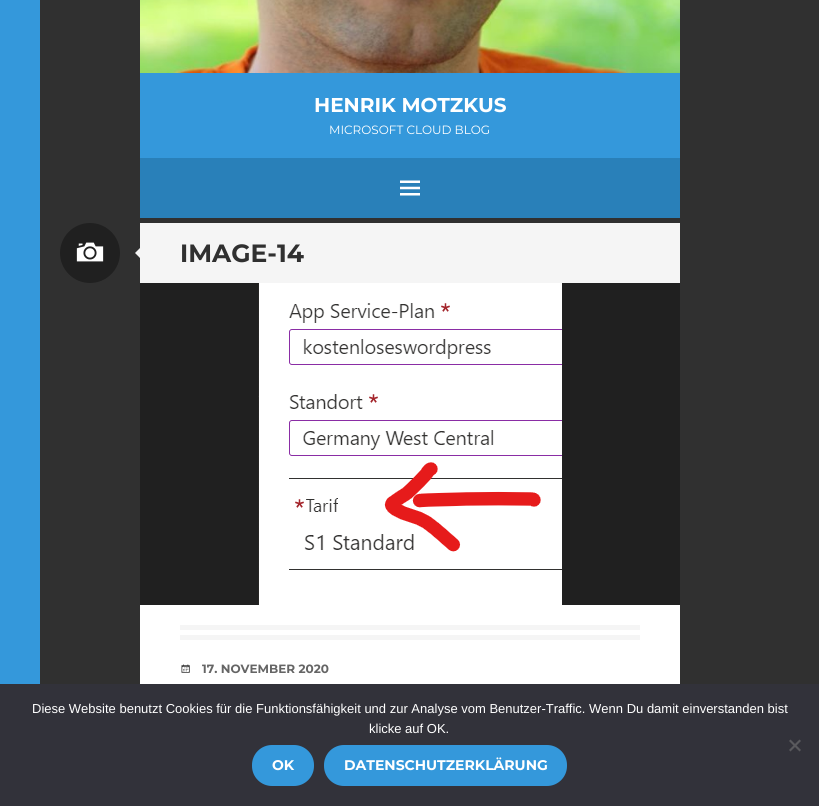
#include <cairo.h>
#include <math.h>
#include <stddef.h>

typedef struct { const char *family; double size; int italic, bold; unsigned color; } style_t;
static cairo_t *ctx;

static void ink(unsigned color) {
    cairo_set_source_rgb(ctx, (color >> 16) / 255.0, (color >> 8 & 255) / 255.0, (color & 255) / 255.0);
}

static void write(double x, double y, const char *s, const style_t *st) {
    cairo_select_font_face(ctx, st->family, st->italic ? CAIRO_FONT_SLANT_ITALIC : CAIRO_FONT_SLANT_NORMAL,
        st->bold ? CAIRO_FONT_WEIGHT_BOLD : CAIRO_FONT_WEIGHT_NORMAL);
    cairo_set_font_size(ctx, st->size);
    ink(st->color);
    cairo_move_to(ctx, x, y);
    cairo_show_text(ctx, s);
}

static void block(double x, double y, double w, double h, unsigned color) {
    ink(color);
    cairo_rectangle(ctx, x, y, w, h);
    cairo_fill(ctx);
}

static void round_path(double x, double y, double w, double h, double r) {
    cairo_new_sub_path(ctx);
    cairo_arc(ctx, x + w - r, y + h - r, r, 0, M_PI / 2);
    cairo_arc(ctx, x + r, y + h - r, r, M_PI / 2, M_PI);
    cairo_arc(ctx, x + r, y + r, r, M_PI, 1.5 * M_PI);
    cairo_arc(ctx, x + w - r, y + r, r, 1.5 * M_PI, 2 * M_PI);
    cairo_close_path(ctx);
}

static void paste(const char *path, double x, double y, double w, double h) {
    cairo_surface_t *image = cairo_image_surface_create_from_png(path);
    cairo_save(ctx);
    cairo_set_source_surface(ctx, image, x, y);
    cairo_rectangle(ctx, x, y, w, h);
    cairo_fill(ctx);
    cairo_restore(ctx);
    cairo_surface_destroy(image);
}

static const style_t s1 = {"Montserrat", 20, 0, 1, 0xffffff};
static const style_t s2 = {"Montserrat", 12, 0, 0, 0xffffff};
static const style_t s3 = {"Montserrat", 25, 0, 1, 0x303030};
static const style_t s4 = {"Montserrat", 12, 0, 1, 0x656565};
static const style_t s5 = {"Liberation Sans", 13, 0, 0, 0xffffff};
static const style_t s6 = {"Montserrat", 14, 0, 1, 0xffffff};

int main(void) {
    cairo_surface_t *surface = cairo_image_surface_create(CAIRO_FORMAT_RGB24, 819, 806);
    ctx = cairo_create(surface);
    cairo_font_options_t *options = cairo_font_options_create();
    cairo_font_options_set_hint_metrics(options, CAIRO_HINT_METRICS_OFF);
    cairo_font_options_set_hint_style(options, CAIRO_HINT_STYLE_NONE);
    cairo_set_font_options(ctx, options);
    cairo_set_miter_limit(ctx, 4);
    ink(0x303030);
    cairo_paint(ctx);
    block(0, 0, 40, 684, 0x3498db);
    block(140, 73, 540, 85, 0x3498db);
    paste("pic1.png", 140, 0, 540, 73);
    write(314, 112, "HENRIK MOTZKUS", &s1);
    write(329, 134, "MICROSOFT CLOUD BLOG", &s2);
    block(140, 158, 540, 60, 0x2980b9);
    paste("pic2.png", 400, 180, 20, 16);
    ink(0x202020);
    cairo_arc(ctx, 90, 253, 30, 0, 2 * M_PI);
    cairo_fill(ctx);
    paste("pic3.png", 76, 242, 28, 20);
    block(140, 223, 540, 60, 0xf5f5f5);
    cairo_new_path(ctx);
    cairo_move_to(ctx, 140, 248);
    cairo_line_to(ctx, 140, 258);
    cairo_line_to(ctx, 135, 253);
    cairo_close_path(ctx);
    cairo_fill(ctx);
    write(180, 262, "IMAGE-14", &s3);
    block(140, 283, 540, 322, 0x202020);
    paste("pic4.png", 258, 283, 304, 322);
    block(140, 605, 540, 79, 0xffffff);
    block(180, 625, 460, 5, 0xf5f5f5);
    block(180, 635, 460, 5, 0xf5f5f5);
    paste("pic5.png", 181, 664, 9, 9);
    write(202, 673, "17. NOVEMBER 2020", &s4);
    block(0, 684, 819, 122, 0x32323a);
    write(32, 713, "Diese Website benutzt Cookies für die Funktionsfähigkeit und zur Analyse vom Benutzer-Traffic. Wenn Du damit einverstanden bist", &s5);
    write(369, 733, "klicke auf OK.", &s5);
    ink(0x59595d);
    cairo_new_path(ctx);
    cairo_move_to(ctx, 799.5, 739.5);
    cairo_line_to(ctx, 801, 741);
    cairo_line_to(ctx, 790.5, 751.5);
    cairo_line_to(ctx, 789, 750);
    cairo_close_path(ctx);
    cairo_fill(ctx);
    cairo_new_path(ctx);
    cairo_move_to(ctx, 789, 741);
    cairo_line_to(ctx, 790.5, 739.5);
    cairo_line_to(ctx, 801, 750);
    cairo_line_to(ctx, 799.5, 751.5);
    cairo_close_path(ctx);
    cairo_fill(ctx);
    ink(0x3498db);
    round_path(252, 745, 62, 41, 20);
    cairo_fill(ctx);
    write(272, 770, "OK", &s6);
    ink(0x3498db);
    round_path(324, 745, 243, 41, 20);
    cairo_fill(ctx);
    write(344, 770, "DATENSCHUTZERKLÄRUNG", &s6);
    cairo_surface_write_to_png(surface, "screenshot.png");
    cairo_font_options_destroy(options);
    cairo_destroy(ctx);
    cairo_surface_destroy(surface);
    return 0;
}
